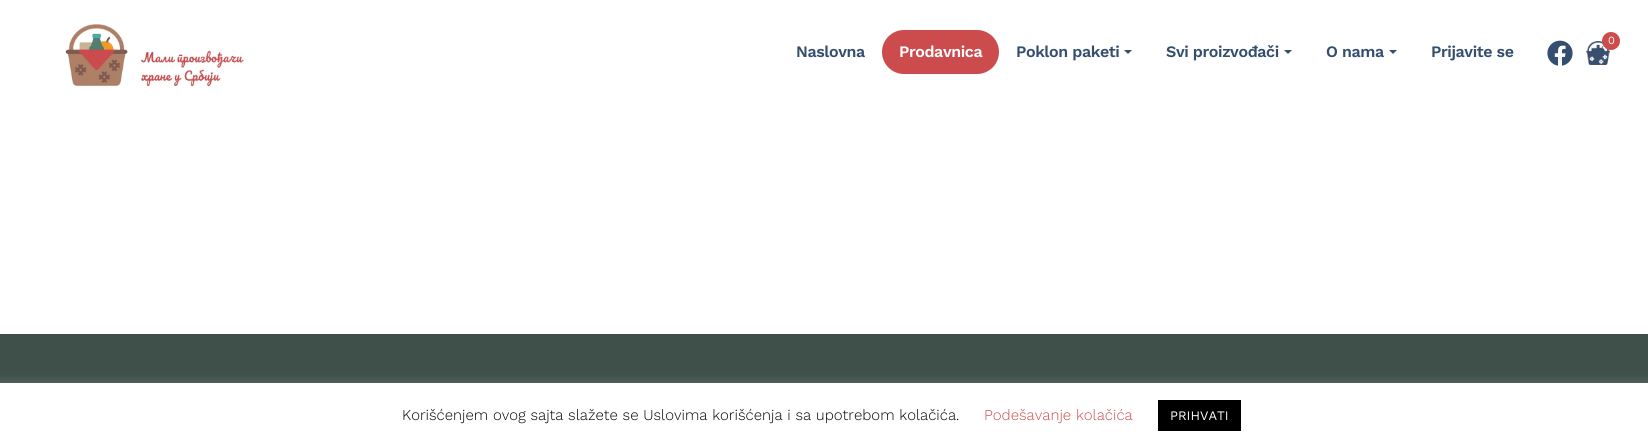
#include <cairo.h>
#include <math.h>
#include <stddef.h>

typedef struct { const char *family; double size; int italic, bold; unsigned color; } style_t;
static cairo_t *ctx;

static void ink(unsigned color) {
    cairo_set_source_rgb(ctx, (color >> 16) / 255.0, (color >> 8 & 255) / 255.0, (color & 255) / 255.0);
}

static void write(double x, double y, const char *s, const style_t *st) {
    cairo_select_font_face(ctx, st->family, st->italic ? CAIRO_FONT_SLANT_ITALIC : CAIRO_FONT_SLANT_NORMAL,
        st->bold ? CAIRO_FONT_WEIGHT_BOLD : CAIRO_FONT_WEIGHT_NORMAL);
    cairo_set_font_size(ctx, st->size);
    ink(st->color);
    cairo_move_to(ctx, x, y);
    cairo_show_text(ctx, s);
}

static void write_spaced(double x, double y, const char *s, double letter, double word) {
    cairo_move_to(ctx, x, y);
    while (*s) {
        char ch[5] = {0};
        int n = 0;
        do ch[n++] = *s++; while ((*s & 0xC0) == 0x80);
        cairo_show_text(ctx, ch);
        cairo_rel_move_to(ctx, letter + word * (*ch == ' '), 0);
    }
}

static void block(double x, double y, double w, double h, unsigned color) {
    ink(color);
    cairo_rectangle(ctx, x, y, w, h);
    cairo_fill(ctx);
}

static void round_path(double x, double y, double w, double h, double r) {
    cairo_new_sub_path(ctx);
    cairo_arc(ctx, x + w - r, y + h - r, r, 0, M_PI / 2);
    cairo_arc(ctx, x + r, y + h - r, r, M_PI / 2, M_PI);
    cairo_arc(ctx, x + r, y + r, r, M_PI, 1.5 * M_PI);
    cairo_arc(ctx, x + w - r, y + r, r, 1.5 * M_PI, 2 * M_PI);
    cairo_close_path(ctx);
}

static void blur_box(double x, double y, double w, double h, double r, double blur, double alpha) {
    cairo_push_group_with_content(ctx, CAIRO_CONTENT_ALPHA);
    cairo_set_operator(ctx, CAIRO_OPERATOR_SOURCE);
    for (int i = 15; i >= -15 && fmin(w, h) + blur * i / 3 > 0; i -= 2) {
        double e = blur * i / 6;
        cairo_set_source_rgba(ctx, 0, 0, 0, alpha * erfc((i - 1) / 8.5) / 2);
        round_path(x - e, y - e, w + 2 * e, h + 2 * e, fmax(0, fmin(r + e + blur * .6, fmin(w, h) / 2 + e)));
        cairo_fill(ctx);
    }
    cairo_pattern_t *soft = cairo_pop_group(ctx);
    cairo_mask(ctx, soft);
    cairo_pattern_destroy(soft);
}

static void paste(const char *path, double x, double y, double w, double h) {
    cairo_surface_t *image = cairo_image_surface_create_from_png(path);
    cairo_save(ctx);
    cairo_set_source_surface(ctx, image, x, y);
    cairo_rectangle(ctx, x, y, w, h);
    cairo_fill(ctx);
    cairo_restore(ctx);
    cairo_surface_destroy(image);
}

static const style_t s1 = {"Work Sans", 11, 0, 0, 0xffffff};
static const style_t s2 = {"Work Sans Light", 15, 0, 0, 0x000000};
static const style_t s3 = {"Work Sans Light", 15, 0, 0, 0xcc4b4c};
static const style_t s4 = {"Work Sans", 13, 0, 0, 0xffffff};

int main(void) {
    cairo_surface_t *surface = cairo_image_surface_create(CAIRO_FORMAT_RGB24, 1648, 448);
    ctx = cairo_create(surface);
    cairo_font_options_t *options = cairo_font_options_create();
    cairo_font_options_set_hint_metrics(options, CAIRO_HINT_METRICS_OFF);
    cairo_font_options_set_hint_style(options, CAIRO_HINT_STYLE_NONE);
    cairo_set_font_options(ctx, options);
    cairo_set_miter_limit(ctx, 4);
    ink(0xffffff);
    cairo_paint(ctx);
    paste("pic1.png", 65, 23, 179, 64);
    paste("pic2.png", 1586, 41, 24, 24);
    ink(0xcc4b4c);
    cairo_arc(ctx, 1611, 41, 9, 0, 2 * M_PI);
    cairo_fill(ctx);
    write(1608, 44, "0", &s1);
    cairo_select_font_face(ctx, "Work Sans SemiBold", CAIRO_FONT_SLANT_NORMAL, CAIRO_FONT_WEIGHT_NORMAL);
    cairo_set_font_size(ctx, 16);
    ink(0x334e6f);
    write_spaced(796, 57, "Naslovna", -0.4, 0);
    ink(0xcc4b4c);
    round_path(882, 30, 117, 44, 22);
    cairo_fill(ctx);
    ink(0xffffff);
    write_spaced(899, 57, "Prodavnica", -0.4, 0);
    ink(0x334e6f);
    write_spaced(1016, 57, "Poklon paketi", -0.4, 0);
    cairo_new_path(ctx);
    cairo_move_to(ctx, 1124, 50);
    cairo_line_to(ctx, 1132, 50);
    cairo_line_to(ctx, 1128, 54);
    cairo_close_path(ctx);
    cairo_fill(ctx);
    write_spaced(1166, 57, "Svi proizvođači", -0.4, 0);
    cairo_new_path(ctx);
    cairo_move_to(ctx, 1284, 50);
    cairo_line_to(ctx, 1292, 50);
    cairo_line_to(ctx, 1288, 54);
    cairo_close_path(ctx);
    cairo_fill(ctx);
    write_spaced(1326, 57, "O nama", -0.4, 0);
    cairo_new_path(ctx);
    cairo_move_to(ctx, 1389, 50);
    cairo_line_to(ctx, 1397, 50);
    cairo_line_to(ctx, 1393, 54);
    cairo_close_path(ctx);
    cairo_fill(ctx);
    write_spaced(1431, 57, "Prijavite se", -0.4, 0);
    paste("pic3.png", 1547, 40, 26, 26);
    block(0, 334, 1648, 49, 0x3f504b);
    ink(0xacabab);
    blur_box(0, 382, 1648, 65, 0, 5, 0.3);
    block(0, 383, 1648, 65, 0xffffff);
    write(402, 420, "Korišćenjem ovog sajta slažete se Uslovima korišćenja i sa upotrebom kolačića.", &s2);
    write(984, 420, "Podešavanje kolačića", &s3);
    block(1158, 400, 83, 31, 0x000000);
    write(1170, 420, "PRIHVATI", &s4);
    cairo_surface_write_to_png(surface, "screenshot.png");
    cairo_font_options_destroy(options);
    cairo_destroy(ctx);
    cairo_surface_destroy(surface);
    return 0;
}
